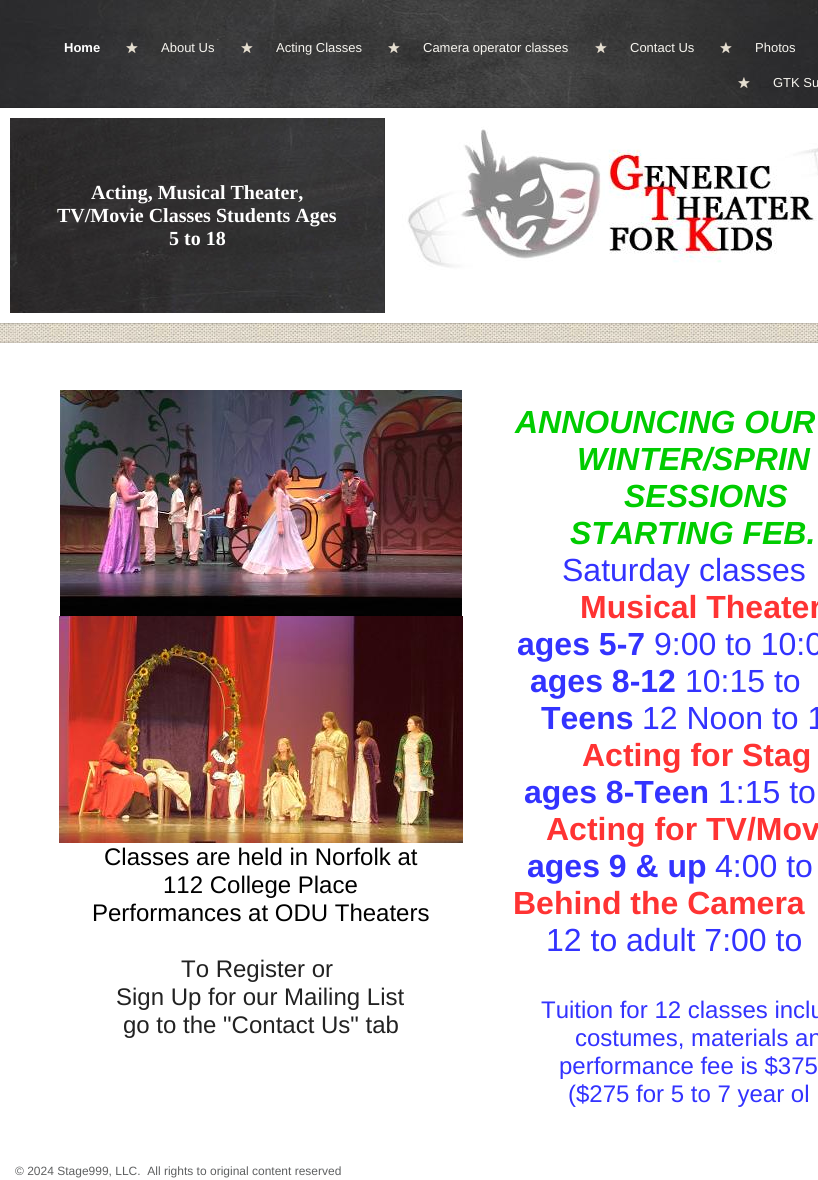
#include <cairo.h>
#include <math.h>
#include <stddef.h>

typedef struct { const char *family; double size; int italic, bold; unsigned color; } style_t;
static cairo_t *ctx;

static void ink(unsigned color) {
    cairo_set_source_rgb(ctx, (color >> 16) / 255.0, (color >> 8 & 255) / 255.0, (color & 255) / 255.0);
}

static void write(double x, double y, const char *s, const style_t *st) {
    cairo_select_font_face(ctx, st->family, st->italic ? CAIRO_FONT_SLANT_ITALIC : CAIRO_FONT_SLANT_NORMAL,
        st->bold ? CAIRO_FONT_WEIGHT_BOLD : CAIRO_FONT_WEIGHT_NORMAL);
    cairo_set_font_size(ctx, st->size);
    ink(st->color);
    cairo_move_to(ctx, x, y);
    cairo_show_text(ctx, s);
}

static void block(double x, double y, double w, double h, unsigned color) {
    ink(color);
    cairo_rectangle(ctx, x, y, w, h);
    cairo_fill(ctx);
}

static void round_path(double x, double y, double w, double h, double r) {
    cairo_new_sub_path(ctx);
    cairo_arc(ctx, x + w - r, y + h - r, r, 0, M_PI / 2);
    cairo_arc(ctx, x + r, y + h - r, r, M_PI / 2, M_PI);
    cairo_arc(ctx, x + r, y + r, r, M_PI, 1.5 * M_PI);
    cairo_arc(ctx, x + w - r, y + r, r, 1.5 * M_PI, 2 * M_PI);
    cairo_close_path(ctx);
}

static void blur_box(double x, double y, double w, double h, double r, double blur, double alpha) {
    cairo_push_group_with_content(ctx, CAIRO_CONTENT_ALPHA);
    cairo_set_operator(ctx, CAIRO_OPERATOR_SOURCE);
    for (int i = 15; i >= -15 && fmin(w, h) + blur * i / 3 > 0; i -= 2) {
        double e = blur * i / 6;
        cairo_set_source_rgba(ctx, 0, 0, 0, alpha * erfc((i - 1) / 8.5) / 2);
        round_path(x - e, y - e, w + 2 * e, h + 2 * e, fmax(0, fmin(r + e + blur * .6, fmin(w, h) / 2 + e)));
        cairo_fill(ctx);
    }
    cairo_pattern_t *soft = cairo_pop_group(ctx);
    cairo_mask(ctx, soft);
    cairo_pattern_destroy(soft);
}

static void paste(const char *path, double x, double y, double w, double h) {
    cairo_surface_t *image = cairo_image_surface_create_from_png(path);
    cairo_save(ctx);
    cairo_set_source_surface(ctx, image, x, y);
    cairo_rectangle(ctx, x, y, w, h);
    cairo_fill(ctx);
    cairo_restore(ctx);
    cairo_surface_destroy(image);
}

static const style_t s1 = {"Liberation Sans", 13, 0, 1, 0xffffff};
static const style_t s2 = {"Liberation Sans", 13, 0, 0, 0xf6f4ee};
static const style_t s3 = {"Liberation Serif", 20, 0, 1, 0xffffff};
static const style_t s4 = {"Liberation Sans", 24, 0, 0, 0x000000};
static const style_t s5 = {"Liberation Sans", 24, 0, 0, 0x222222};
static const style_t s6 = {"Liberation Sans", 32, 1, 1, 0x00cc00};
static const style_t s7 = {"Liberation Sans", 32, 0, 0, 0x3333ff};
static const style_t s8 = {"Liberation Sans", 32, 0, 1, 0xff3333};
static const style_t s9 = {"Liberation Sans", 32, 0, 1, 0x3333ff};
static const style_t s10 = {"Liberation Sans", 24, 0, 0, 0x3333ff};
static const style_t s11 = {"Liberation Sans", 12, 0, 0, 0x5f6061};

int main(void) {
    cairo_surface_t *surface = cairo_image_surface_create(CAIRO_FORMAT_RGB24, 818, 1180);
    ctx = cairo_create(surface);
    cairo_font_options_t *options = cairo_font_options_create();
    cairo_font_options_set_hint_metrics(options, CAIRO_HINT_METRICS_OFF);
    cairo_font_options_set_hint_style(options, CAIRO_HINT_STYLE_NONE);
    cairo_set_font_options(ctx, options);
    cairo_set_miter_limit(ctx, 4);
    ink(0xffffff);
    cairo_paint(ctx);
    paste("pic1.png", 0, 323, 818, 20);
    paste("pic2.png", 0, 0, 818, 108);
    write(64, 52, "Home", &s1);
    paste("pic3.png", 126, 42, 12, 11);
    write(161, 52, "About Us", &s2);
    paste("pic4.png", 241, 42, 12, 11);
    write(276, 52, "Acting Classes", &s2);
    paste("pic5.png", 388, 42, 12, 11);
    write(423, 52, "Camera operator classes", &s2);
    paste("pic6.png", 595, 42, 12, 11);
    write(630, 52, "Contact Us", &s2);
    paste("pic7.png", 720, 42, 12, 11);
    write(755, 52, "Photos", &s2);
    paste("pic8.png", 738, 77, 12, 11);
    write(773, 87, "GTK Su", &s2);
    ink(0x000000);
    blur_box(0, 108, 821, 215, 0, 1, 0.35);
    block(0, 108, 818, 215, 0xffffff);
    paste("pic9.png", 10, 118, 374, 195);
    block(384, 118, 1, 195, 0x333333);
    write(91, 199, "Acting, Musical Theater,", &s3);
    write(57, 222, "TV/Movie Classes Students Ages", &s3);
    write(169, 245, "5 to 18", &s3);
    paste("pic10.png", 385, 118, 433, 195);
    ink(0x000000);
    blur_box(0, 343, 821, 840, 0, 1, 0.35);
    block(0, 343, 818, 837, 0xffffff);
    paste("pic11.png", 60, 390, 402, 226);
    paste("pic12.png", 59, 616, 404, 227);
    write(104, 865, "Classes are held in Norfolk at", &s4);
    write(163, 893, "112 College Place", &s4);
    write(92, 921, "Performances at ODU Theaters", &s4);
    write(181, 977, "To Register or", &s5);
    write(116, 1005, "Sign Up for our Mailing List", &s5);
    write(123, 1033, "go to the \"Contact Us\" tab", &s5);
    write(515, 433, "ANNOUNCING OUR", &s6);
    write(577, 470, "WINTER/SPRIN", &s6);
    write(624, 507, "SESSIONS", &s6);
    write(570, 544, "STARTING FEB.", &s6);
    write(562, 581, "Saturday classes", &s7);
    write(580, 618, "Musical Theater", &s8);
    write(517, 655, "ages 5-7", &s9);
    write(654, 655, "9:00 to 10:0", &s7);
    write(530, 692, "ages 8-12", &s9);
    write(685, 692, "10:15 to", &s7);
    write(541, 729, "Teens", &s9);
    write(642, 729, "12 Noon to 1", &s7);
    write(582, 766, "Acting for Stag", &s8);
    write(524, 803, "ages 8-Teen", &s9);
    write(718, 803, "1:15 to", &s7);
    write(546, 840, "Acting for TV/Mov", &s8);
    write(527, 877, "ages 9 & up", &s9);
    write(715, 877, "4:00 to", &s7);
    write(513, 914, "Behind the Camera", &s8);
    write(546, 951, "12 to adult 7:00 to", &s7);
    write(541, 1018, "Tuition for 12 classes inclu", &s10);
    write(575, 1046, "costumes, materials an", &s10);
    write(559, 1074, "performance fee is $375", &s10);
    write(568, 1102, "($275 for 5 to 7 year ol", &s10);
    write(15, 1175, "© 2024 Stage999, LLC.  All rights to original content reserved", &s11);
    cairo_surface_write_to_png(surface, "screenshot.png");
    cairo_font_options_destroy(options);
    cairo_destroy(ctx);
    cairo_surface_destroy(surface);
    return 0;
}
